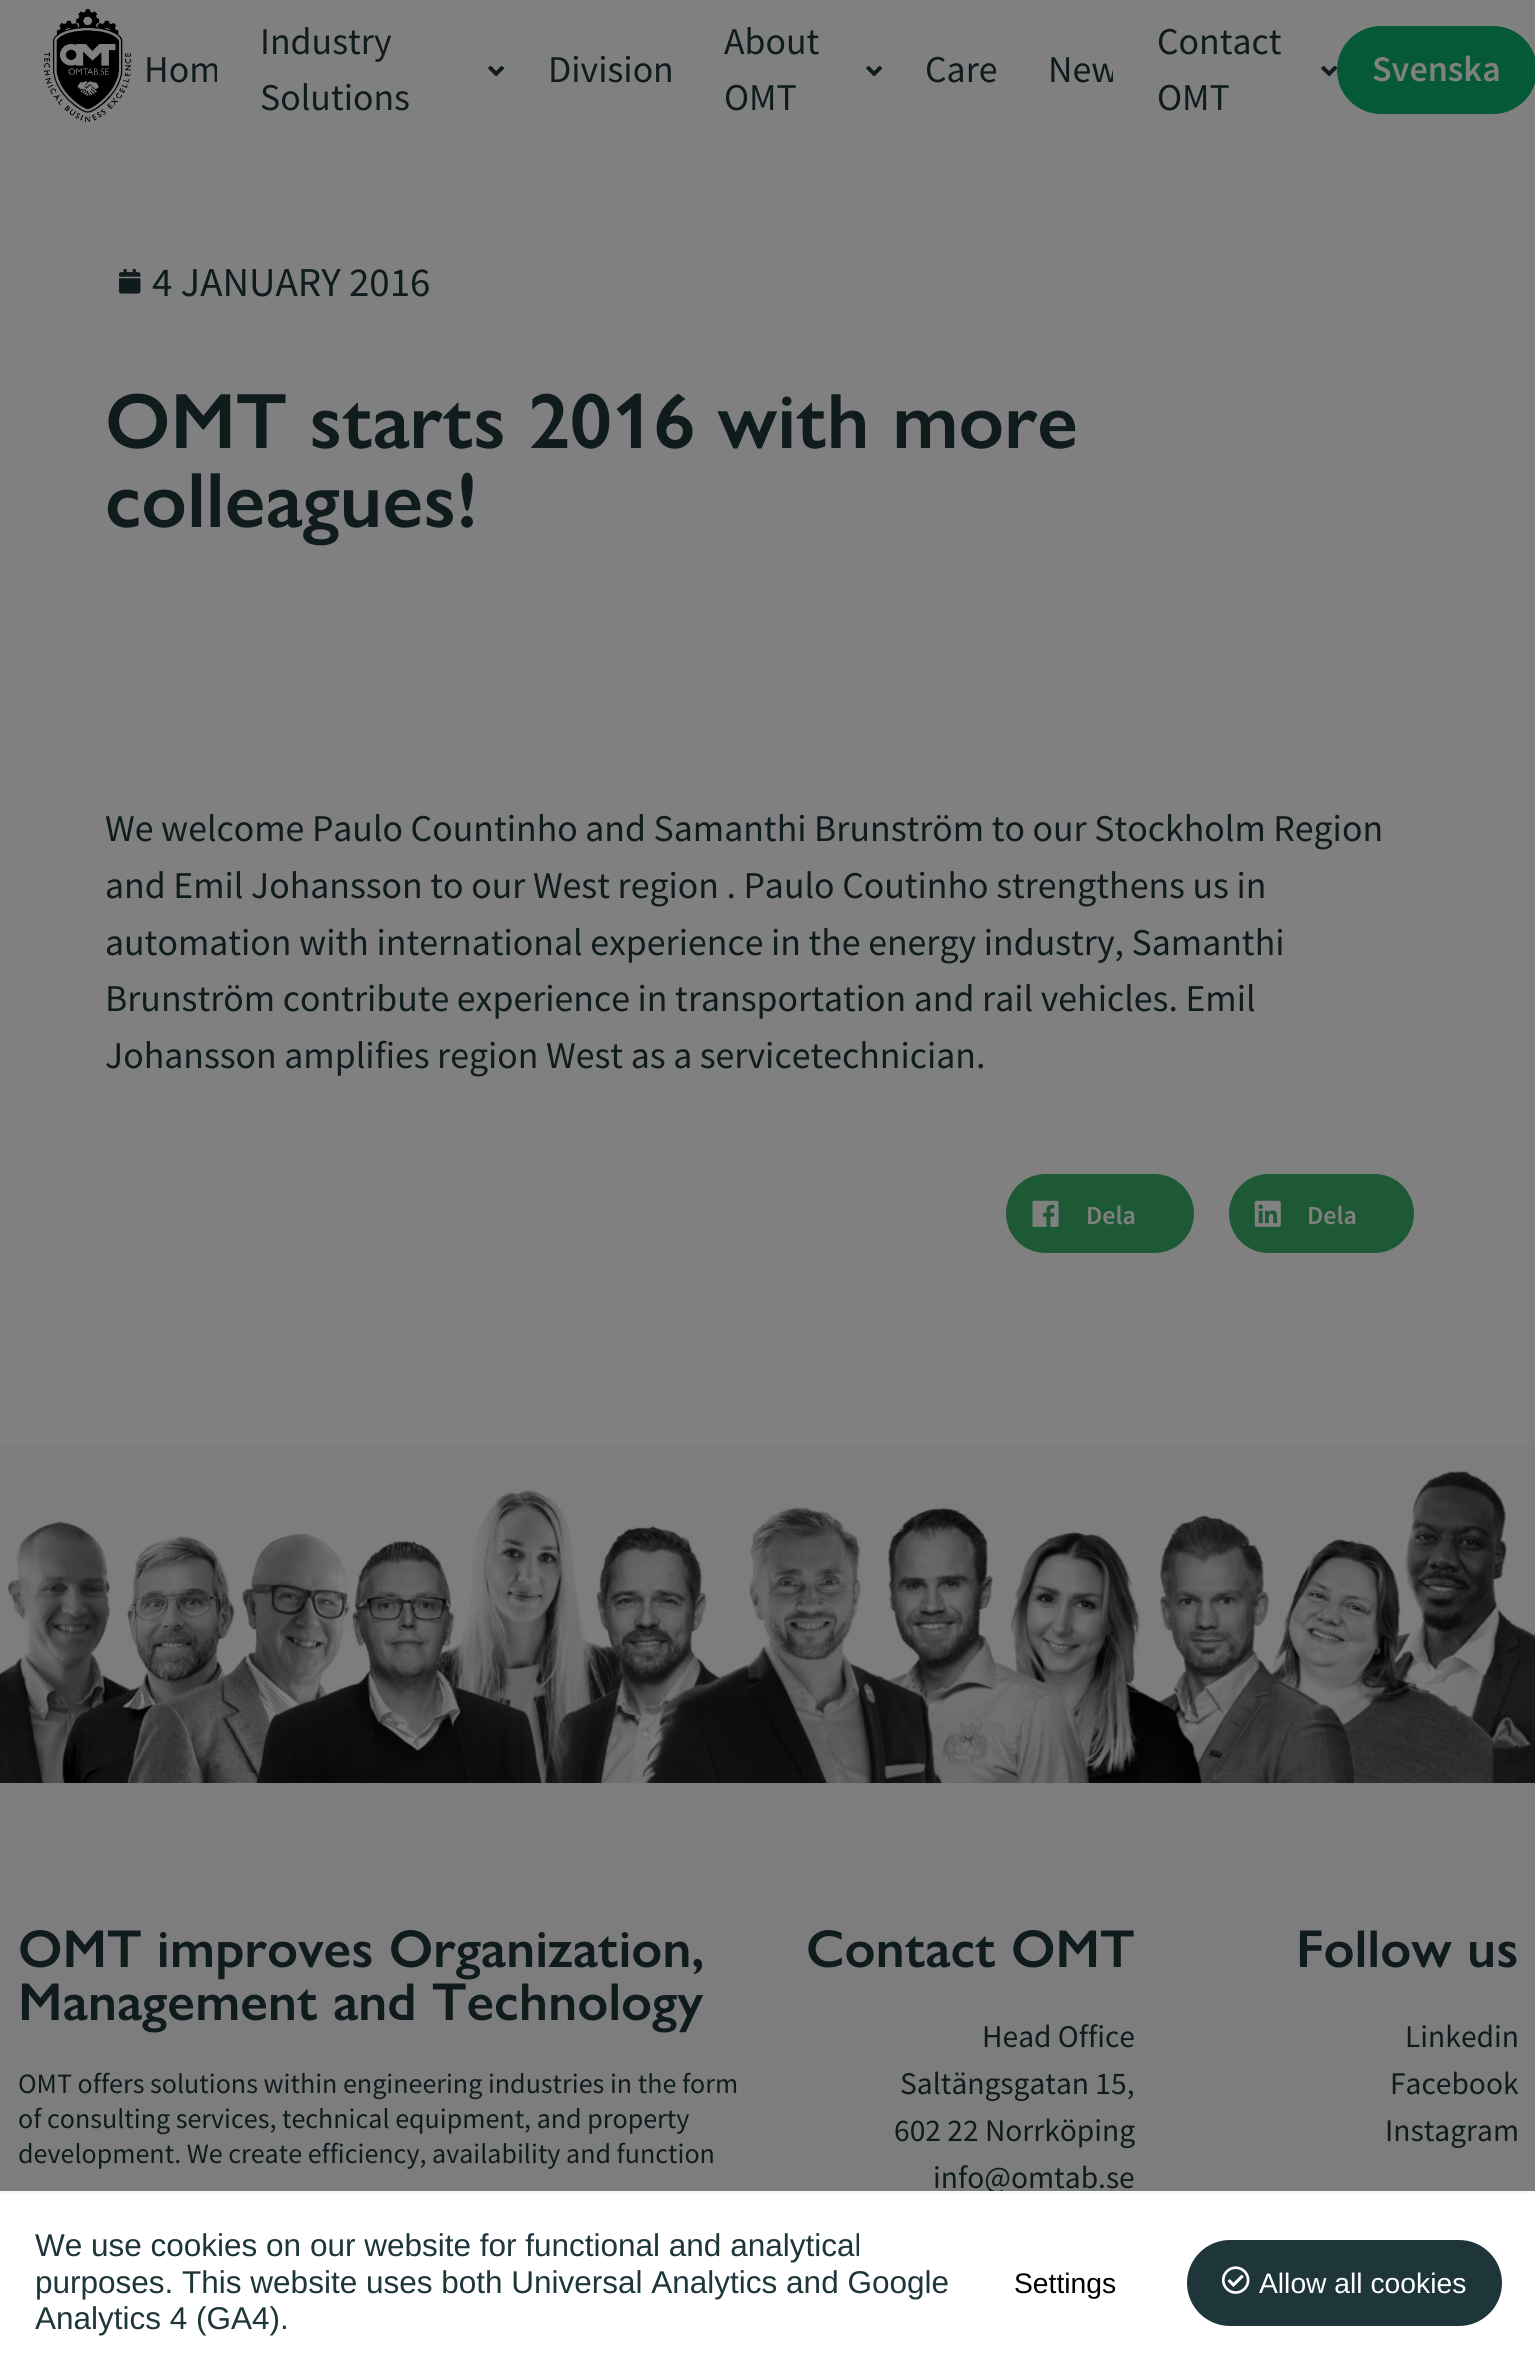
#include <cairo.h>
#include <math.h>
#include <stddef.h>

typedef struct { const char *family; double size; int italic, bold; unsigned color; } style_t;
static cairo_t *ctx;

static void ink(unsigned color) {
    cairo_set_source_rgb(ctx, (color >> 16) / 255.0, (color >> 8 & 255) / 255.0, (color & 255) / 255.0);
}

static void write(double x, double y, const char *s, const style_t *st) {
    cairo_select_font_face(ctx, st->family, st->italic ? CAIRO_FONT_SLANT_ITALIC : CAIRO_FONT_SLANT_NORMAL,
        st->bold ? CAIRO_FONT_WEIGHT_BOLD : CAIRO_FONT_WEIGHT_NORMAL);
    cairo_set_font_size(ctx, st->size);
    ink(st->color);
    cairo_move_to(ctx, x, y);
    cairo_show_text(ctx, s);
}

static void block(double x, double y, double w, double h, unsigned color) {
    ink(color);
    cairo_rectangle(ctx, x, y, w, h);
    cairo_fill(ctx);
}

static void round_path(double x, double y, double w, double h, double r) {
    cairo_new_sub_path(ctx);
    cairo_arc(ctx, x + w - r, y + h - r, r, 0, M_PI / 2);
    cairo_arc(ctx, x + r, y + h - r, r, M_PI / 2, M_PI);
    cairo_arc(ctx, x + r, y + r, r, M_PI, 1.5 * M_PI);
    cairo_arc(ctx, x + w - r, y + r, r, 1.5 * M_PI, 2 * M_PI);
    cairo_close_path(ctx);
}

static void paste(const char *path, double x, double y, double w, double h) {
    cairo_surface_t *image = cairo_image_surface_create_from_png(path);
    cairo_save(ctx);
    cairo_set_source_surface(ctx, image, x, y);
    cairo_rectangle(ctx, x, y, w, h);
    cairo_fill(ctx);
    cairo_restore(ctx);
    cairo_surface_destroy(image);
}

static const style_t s1 = {"Source Sans Pro", 37.8, 0, 0, 0x0f1b1d};
static const style_t s2 = {"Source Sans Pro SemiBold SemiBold", 36, 0, 0, 0x808080};
static const style_t s3 = {"Source Sans Pro", 41, 0, 0, 0x0f1b1d};
static const style_t s4 = {"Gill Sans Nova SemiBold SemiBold", 78.75, 0, 0, 0x0f1b1d};
static const style_t s5 = {"Source Sans Pro SemiBold SemiBold", 26, 0, 0, 0x808080};
static const style_t s6 = {"Gill Sans Nova SemiBold SemiBold", 53.5, 0, 0, 0x0f1b1d};
static const style_t s7 = {"Source Sans Pro", 28, 0, 0, 0x0f1b1d};
static const style_t s8 = {"Source Sans Pro", 31.5, 0, 0, 0x0f1b1d};
static const style_t s9 = {"Liberation Sans", 31.5, 0, 0, 0x1e363a};
static const style_t s10 = {"Liberation Sans", 28.25, 0, 0, 0x000000};
static const style_t s11 = {"Liberation Sans", 28.25, 0, 0, 0xffffff};

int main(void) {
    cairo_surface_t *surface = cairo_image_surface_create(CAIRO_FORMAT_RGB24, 1535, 2373);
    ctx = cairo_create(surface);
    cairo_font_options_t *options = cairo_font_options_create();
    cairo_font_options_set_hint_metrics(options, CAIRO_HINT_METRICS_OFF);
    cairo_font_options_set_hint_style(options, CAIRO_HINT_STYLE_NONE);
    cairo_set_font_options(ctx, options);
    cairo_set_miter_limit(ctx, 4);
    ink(0x808080);
    cairo_paint(ctx);
    paste("pic1.png", 43, 8, 89, 115);
    paste("pic2.png", 44, 9, 87, 113);
    cairo_save(ctx);
    cairo_rectangle(ctx, 145, 14, 72, 112);
    cairo_clip(ctx);
    write(144, 82, "Hom", &s1);
    cairo_restore(ctx);
    write(260, 54, "Industry", &s1);
    paste("pic3.png", 488, 66, 16, 11);
    write(260, 110, "Solutions", &s1);
    write(548, 82, "Division", &s1);
    write(724, 54, "About", &s1);
    paste("pic3.png", 866, 66, 16, 11);
    write(724, 110, "OMT", &s1);
    write(925, 82, "Care", &s1);
    cairo_save(ctx);
    cairo_rectangle(ctx, 1048, 14, 65, 112);
    cairo_clip(ctx);
    write(1048, 82, "New", &s1);
    cairo_restore(ctx);
    write(1157, 54, "Contact", &s1);
    paste("pic3.png", 1321, 66, 16, 11);
    write(1157, 110, "OMT", &s1);
    ink(0x065936);
    round_path(1337, 26, 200, 88, 44);
    cairo_fill(ctx);
    write(1372, 81, "Svenska", &s2);
    paste("pic4.png", 119, 269, 22, 25);
    write(152, 296, "4 JANUARY 2016", &s3);
    write(105, 448, "OMT starts 2016 with more", &s4);
    write(105, 527, "colleagues!", &s4);
    write(105, 841, "We welcome Paulo Countinho and Samanthi Brunström to our Stockholm Region", &s1);
    write(105, 898, "and Emil Johansson to our West region . Paulo Coutinho strengthens us in", &s1);
    write(105, 955, "automation with international experience in the energy industry, Samanthi", &s1);
    write(105, 1011, "Brunström contribute experience in transportation and rail vehicles. Emil", &s1);
    write(105, 1068, "Johansson amplifies region West as a servicetechnician.", &s1);
    ink(0x1e5936);
    round_path(1006, 1174, 188, 79, 39.5);
    cairo_fill(ctx);
    paste("pic5.png", 1032, 1200, 27, 27);
    write(1086, 1224, "Dela", &s5);
    ink(0x1e5936);
    round_path(1229, 1174, 185, 79, 39.5);
    cairo_fill(ctx);
    paste("pic6.png", 1254, 1200, 27, 27);
    write(1307, 1224, "Dela", &s5);
    paste("pic7.png", 0, 1446, 1535, 337);
    block(0, 1783, 1535, 408, 0x7d7d7d);
    write(18, 1967, "OMT improves Organization,", &s6);
    write(18, 2020, "Management and Technology", &s6);
    write(18, 2093, "OMT offers solutions within engineering industries in the form", &s7);
    write(18, 2128, "of consulting services, technical equipment, and property", &s7);
    write(18, 2163, "development. We create efficiency, availability and function", &s7);
    write(806, 1967, "Contact OMT", &s6);
    write(982, 2047, "Head Office", &s8);
    write(900, 2094, "Saltängsgatan 15,", &s8);
    write(894, 2141, "602 22 Norrköping", &s8);
    write(933, 2188, "info@omtab.se", &s8);
    write(1296, 1967, "Follow us", &s6);
    write(1405, 2047, "Linkedin", &s8);
    write(1390, 2094, "Facebook", &s8);
    write(1385, 2141, "Instagram", &s8);
    block(0, 2193, 1535, 180, 0xffffff);
    block(0, 2191, 1535, 2, 0xf8f8f8);
    write(35, 2256, "We use cookies on our website for functional and analytical", &s9);
    write(35, 2293, "purposes. This website uses both Universal Analytics and Google", &s9);
    write(35, 2329, "Analytics 4 (GA4).", &s9);
    write(1014, 2293, "Settings", &s10);
    ink(0x1e363a);
    round_path(1187, 2240, 315, 86, 43);
    cairo_fill(ctx);
    paste("pic8.png", 1221, 2266, 29, 28);
    write(1259, 2293, "Allow all cookies", &s11);
    cairo_surface_write_to_png(surface, "screenshot.png");
    cairo_font_options_destroy(options);
    cairo_destroy(ctx);
    cairo_surface_destroy(surface);
    return 0;
}
